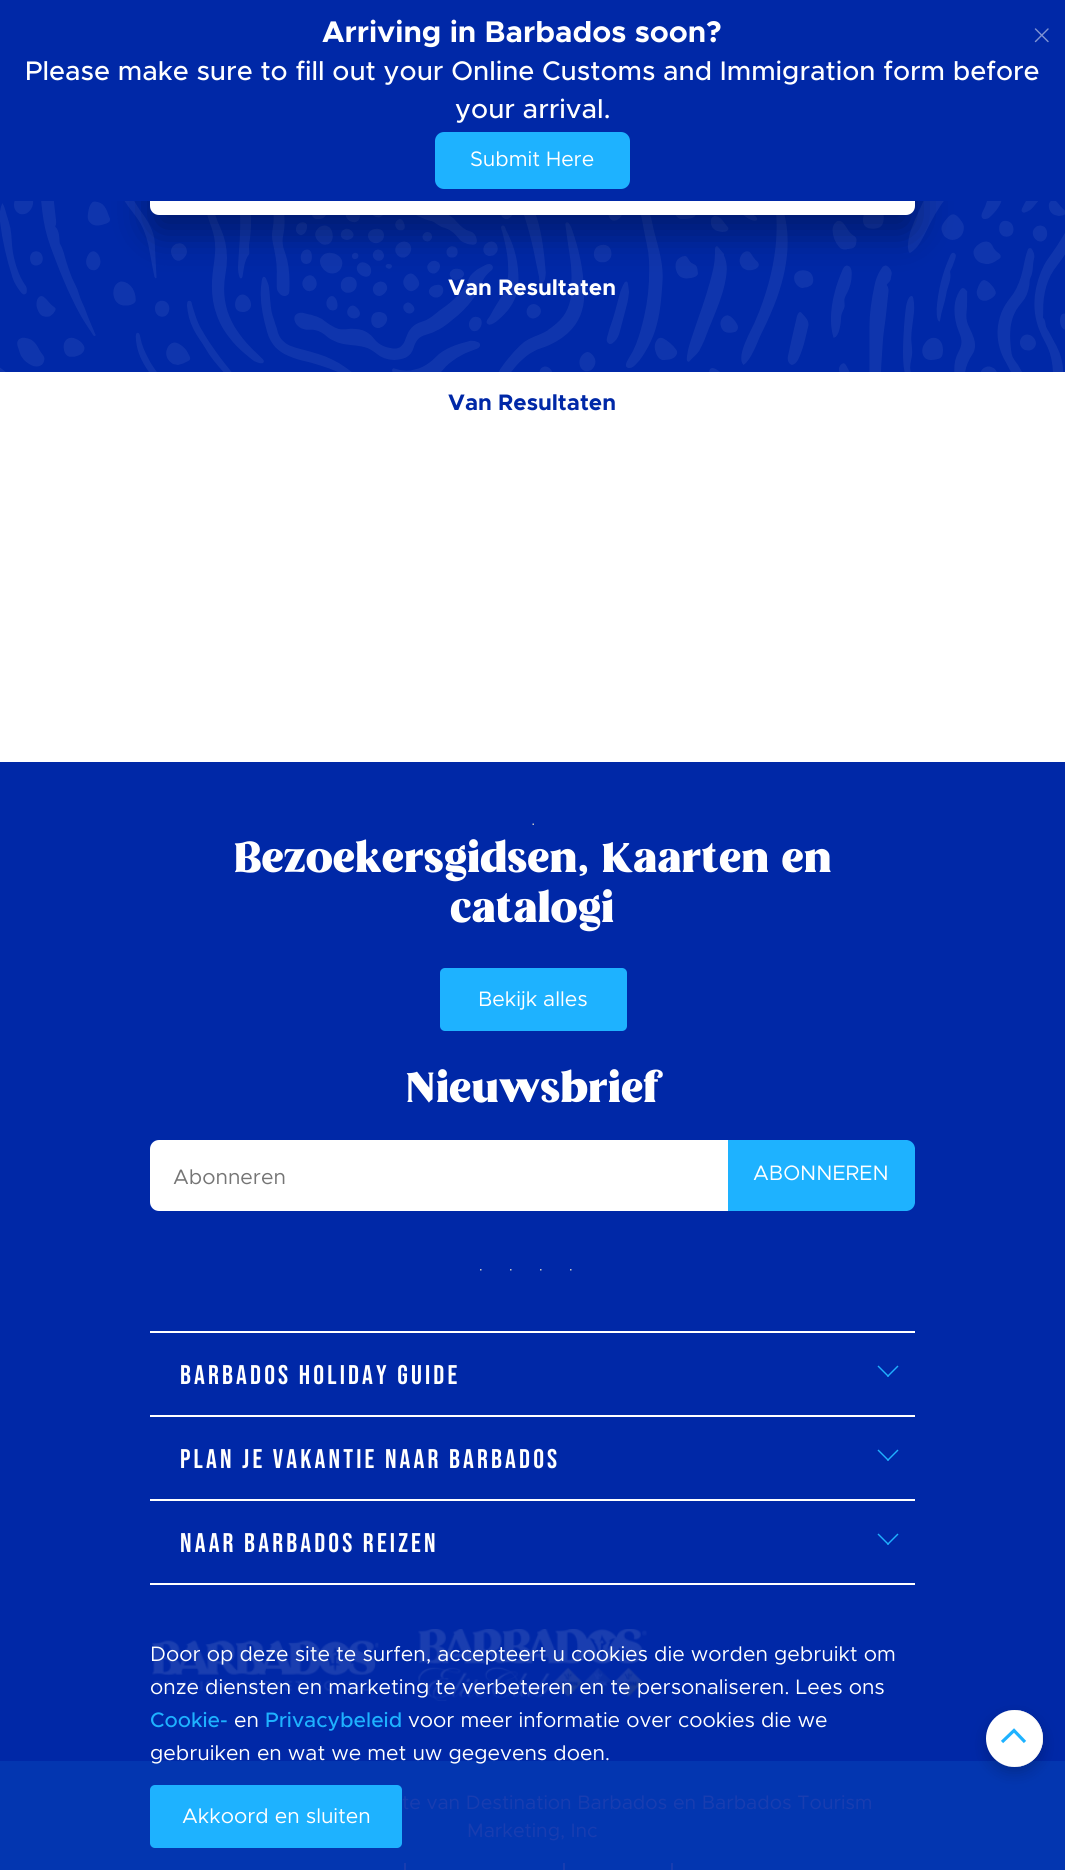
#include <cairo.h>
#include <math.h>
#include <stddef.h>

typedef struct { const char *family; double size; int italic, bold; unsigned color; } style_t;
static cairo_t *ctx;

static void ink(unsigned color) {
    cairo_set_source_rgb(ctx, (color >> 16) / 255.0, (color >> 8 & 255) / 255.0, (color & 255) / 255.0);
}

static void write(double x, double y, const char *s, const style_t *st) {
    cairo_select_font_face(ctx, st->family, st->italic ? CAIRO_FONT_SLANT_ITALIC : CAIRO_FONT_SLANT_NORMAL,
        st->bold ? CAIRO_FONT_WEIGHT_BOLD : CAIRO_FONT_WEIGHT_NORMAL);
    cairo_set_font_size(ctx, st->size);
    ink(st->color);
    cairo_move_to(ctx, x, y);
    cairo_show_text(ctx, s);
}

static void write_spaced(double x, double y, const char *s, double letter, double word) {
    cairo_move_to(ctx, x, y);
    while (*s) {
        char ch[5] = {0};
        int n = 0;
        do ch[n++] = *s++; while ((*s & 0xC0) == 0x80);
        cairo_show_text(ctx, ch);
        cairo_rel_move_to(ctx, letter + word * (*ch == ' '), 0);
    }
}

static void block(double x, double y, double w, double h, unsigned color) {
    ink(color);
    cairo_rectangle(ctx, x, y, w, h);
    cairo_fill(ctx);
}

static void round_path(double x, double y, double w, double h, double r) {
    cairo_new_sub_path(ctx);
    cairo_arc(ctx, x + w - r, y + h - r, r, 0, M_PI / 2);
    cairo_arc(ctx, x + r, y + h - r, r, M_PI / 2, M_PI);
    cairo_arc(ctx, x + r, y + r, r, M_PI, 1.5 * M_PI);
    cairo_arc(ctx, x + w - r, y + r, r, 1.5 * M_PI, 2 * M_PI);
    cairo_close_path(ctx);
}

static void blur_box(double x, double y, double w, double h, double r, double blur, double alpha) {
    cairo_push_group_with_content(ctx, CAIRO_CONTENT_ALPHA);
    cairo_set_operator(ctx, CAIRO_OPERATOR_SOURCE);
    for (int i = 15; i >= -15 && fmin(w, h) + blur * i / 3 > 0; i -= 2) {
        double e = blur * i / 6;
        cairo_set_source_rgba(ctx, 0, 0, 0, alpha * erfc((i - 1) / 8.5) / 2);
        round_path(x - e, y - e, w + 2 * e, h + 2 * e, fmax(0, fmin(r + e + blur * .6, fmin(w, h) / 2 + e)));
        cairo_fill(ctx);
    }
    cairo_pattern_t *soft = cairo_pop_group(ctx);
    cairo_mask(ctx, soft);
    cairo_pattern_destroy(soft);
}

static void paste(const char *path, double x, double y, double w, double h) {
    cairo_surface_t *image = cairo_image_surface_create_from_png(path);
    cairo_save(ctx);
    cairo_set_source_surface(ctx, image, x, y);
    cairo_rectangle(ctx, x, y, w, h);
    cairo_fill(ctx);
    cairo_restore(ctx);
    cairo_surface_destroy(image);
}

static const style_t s1 = {"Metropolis", 30, 0, 1, 0xffffff};
static const style_t s2 = {"Metropolis Medium", 27, 0, 0, 0xffffff};
static const style_t s3 = {"Metropolis", 21, 0, 0, 0xffffff};
static const style_t s4 = {"Metropolis", 22.5, 0, 1, 0xffffff};
static const style_t s5 = {"Metropolis", 22.5, 0, 1, 0x0028a7};
static const style_t s6 = {"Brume", 42, 0, 0, 0xffffff};
static const style_t s7 = {"Metropolis", 21, 0, 0, 0x757575};
static const style_t s8 = {"Metropolis", 19.5, 0, 0, 0x193db0};
static const style_t s9 = {"Metropolis Medium", 21, 0, 0, 0x1eb2ff};

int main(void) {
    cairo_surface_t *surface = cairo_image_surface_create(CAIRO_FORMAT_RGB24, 1065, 1870);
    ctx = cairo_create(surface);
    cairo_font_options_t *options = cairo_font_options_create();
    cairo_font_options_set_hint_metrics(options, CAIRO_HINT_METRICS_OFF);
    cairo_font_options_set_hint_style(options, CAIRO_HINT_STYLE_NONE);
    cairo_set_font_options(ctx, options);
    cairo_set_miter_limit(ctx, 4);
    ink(0xffffff);
    cairo_paint(ctx);
    paste("pic1.png", 0, 201, 1065, 171);
    ink(0x000000);
    blur_box(150, 143, 765, 90, 9, 18, 0.35);
    ink(0xffffff);
    round_path(150, 125, 765, 90, 9);
    cairo_fill(ctx);
    block(0, 0, 1065, 201, 0x0028a7);
    write(322, 42, "Arriving in Barbados soon?", &s1);
    cairo_new_path(ctx);
    cairo_move_to(ctx, 1035.5, 29);
    cairo_line_to(ctx, 1048, 41.5);
    cairo_move_to(ctx, 1035.5, 41.5);
    cairo_line_to(ctx, 1048, 29);
    ink(0x8094d3);
    cairo_set_line_width(ctx, 1.4);
    cairo_set_line_cap(ctx, CAIRO_LINE_CAP_ROUND);
    cairo_set_line_join(ctx, CAIRO_LINE_JOIN_ROUND);
    cairo_stroke(ctx);
    write(25, 80, "Please make sure to fill out your Online Customs and Immigration form before", &s2);
    write(455, 118, "your arrival.", &s2);
    ink(0x1eb2ff);
    round_path(435, 132, 195, 57, 9);
    cairo_fill(ctx);
    write(470, 166, "Submit Here", &s3);
    write(448, 295, "Van Resultaten", &s4);
    write(448, 410, "Van Resultaten", &s5);
    block(0, 762, 1065, 999, 0x0028a7);
    paste("pic2.png", 532, 823, 2, 2);
    write(234, 872, "Bezoekersgidsen, Kaarten en", &s6);
    write(450, 922, "catalogi", &s6);
    ink(0x1eb2ff);
    round_path(440, 968, 187, 63, 5);
    cairo_fill(ctx);
    write(478, 1006, "Bekijk alles", &s3);
    write(406, 1102, "Nieuwsbrief", &s6);
    cairo_new_path(ctx);
    cairo_move_to(ctx, 159, 1140);
    cairo_line_to(ctx, 903, 1140);
    cairo_curve_to(ctx, 909.5, 1140, 915, 1145.5, 915, 1152);
    cairo_line_to(ctx, 915, 1199);
    cairo_curve_to(ctx, 915, 1205.5, 909.5, 1211, 903, 1211);
    cairo_line_to(ctx, 159, 1211);
    cairo_curve_to(ctx, 154, 1211, 150, 1207, 150, 1202);
    cairo_line_to(ctx, 150, 1149);
    cairo_curve_to(ctx, 150, 1144, 154, 1140, 159, 1140);
    cairo_close_path(ctx);
    cairo_fill(ctx);
    write(173, 1184, "Abonneren", &s7);
    ink(0x1eb2ff);
    cairo_new_path(ctx);
    cairo_move_to(ctx, 728, 1140);
    cairo_line_to(ctx, 906, 1140);
    cairo_curve_to(ctx, 911, 1140, 915, 1144, 915, 1149);
    cairo_line_to(ctx, 915, 1202);
    cairo_curve_to(ctx, 915, 1207, 911, 1211, 906, 1211);
    cairo_line_to(ctx, 728, 1211);
    cairo_close_path(ctx);
    cairo_fill(ctx);
    write(753, 1180, "ABONNEREN", &s3);
    paste("pic3.png", 480, 1269, 2, 2);
    paste("pic3.png", 510, 1269, 2, 2);
    paste("pic3.png", 540, 1269, 2, 2);
    paste("pic3.png", 570, 1269, 2, 2);
    block(150, 1331, 765, 2, 0xffffff);
    block(150, 1415, 765, 2, 0xffffff);
    cairo_select_font_face(ctx, "Bebas Neue", CAIRO_FONT_SLANT_NORMAL, CAIRO_FONT_WEIGHT_NORMAL);
    cairo_set_font_size(ctx, 27);
    write_spaced(180, 1384, "Barbados Holiday Guide", 3.15, 0);
    ink(0x20b1ff);
    cairo_new_path(ctx);
    cairo_move_to(ctx, 887, 1376);
    cairo_line_to(ctx, 897.5, 1365.5);
    cairo_line_to(ctx, 898.5, 1366.5);
    cairo_line_to(ctx, 888, 1377);
    cairo_close_path(ctx);
    cairo_fill(ctx);
    cairo_new_path(ctx);
    cairo_move_to(ctx, 877.5, 1366.5);
    cairo_line_to(ctx, 878.5, 1365.5);
    cairo_line_to(ctx, 889, 1376);
    cairo_line_to(ctx, 888, 1377);
    cairo_close_path(ctx);
    cairo_fill(ctx);
    block(150, 1499, 765, 2, 0xffffff);
    write_spaced(180, 1468, "Plan je vakantie naar Barbados", 3.15, 0);
    ink(0x20b1ff);
    cairo_new_path(ctx);
    cairo_move_to(ctx, 887, 1460);
    cairo_line_to(ctx, 897.5, 1449.5);
    cairo_line_to(ctx, 898.5, 1450.5);
    cairo_line_to(ctx, 888, 1461);
    cairo_close_path(ctx);
    cairo_fill(ctx);
    cairo_new_path(ctx);
    cairo_move_to(ctx, 877.5, 1450.5);
    cairo_line_to(ctx, 878.5, 1449.5);
    cairo_line_to(ctx, 889, 1460);
    cairo_line_to(ctx, 888, 1461);
    cairo_close_path(ctx);
    cairo_fill(ctx);
    block(150, 1583, 765, 2, 0xffffff);
    write_spaced(180, 1552, "Naar Barbados reizen", 3.15, 0);
    ink(0x20b1ff);
    cairo_new_path(ctx);
    cairo_move_to(ctx, 887, 1544);
    cairo_line_to(ctx, 897.5, 1533.5);
    cairo_line_to(ctx, 898.5, 1534.5);
    cairo_line_to(ctx, 888, 1545);
    cairo_close_path(ctx);
    cairo_fill(ctx);
    cairo_new_path(ctx);
    cairo_move_to(ctx, 877.5, 1534.5);
    cairo_line_to(ctx, 878.5, 1533.5);
    cairo_line_to(ctx, 889, 1544);
    cairo_line_to(ctx, 888, 1545);
    cairo_close_path(ctx);
    cairo_fill(ctx);
    paste("pic4.png", 152, 1640, 227, 51);
    paste("pic5.png", 418, 1629, 229, 72);
    block(0, 1761, 1065, 109, 0x0336b0);
    write(402, 1809, "te van Destination Barbados en Barbados Tourism", &s8);
    write(467, 1837, "Marketing, Inc", &s8);
    block(404, 1863, 2, 7, 0x193db0);
    block(563, 1863, 2, 7, 0x193db0);
    block(671, 1863, 2, 7, 0x193db0);
    write(150, 1661, "Door op deze site te surfen, accepteert u cookies die worden gebruikt om", &s3);
    write(150, 1694, "onze diensten en marketing te verbeteren en te personaliseren. Lees ons", &s3);
    write(150, 1727, "Cookie-", &s9);
    write(234, 1727, "en", &s3);
    write(265, 1727, "Privacybeleid", &s9);
    write(408, 1727, "voor meer informatie over cookies die we", &s3);
    write(150, 1760, "gebruiken en wat we met uw gegevens doen.", &s3);
    ink(0x1eb2ff);
    round_path(150, 1785, 252, 63, 5);
    cairo_fill(ctx);
    write(182, 1823, "Akkoord en sluiten", &s3);
    ink(0x000000);
    blur_box(986, 1716, 57, 57, 28.5, 7.5, 0.2);
    ink(0xffffff);
    cairo_arc(ctx, 1014.5, 1738.5, 28.5, 0, 2 * M_PI);
    cairo_fill(ctx);
    cairo_save(ctx);
    round_path(986, 1710, 57, 57, 28.5);
    cairo_clip(ctx);
    cairo_new_path(ctx);
    cairo_move_to(ctx, 985, 1738.5);
    cairo_curve_to(ctx, 985, 1722.5, 998, 1709.5, 1014, 1709.5);
    cairo_curve_to(ctx, 1030, 1709.5, 1043, 1722.5, 1043, 1738.5);
    cairo_curve_to(ctx, 1043, 1754.5, 1030, 1767.5, 1014, 1767.5);
    cairo_curve_to(ctx, 998, 1767.5, 985, 1754.5, 985, 1738.5);
    cairo_close_path(ctx);
    ink(0xf1f1f1);
    cairo_set_line_width(ctx, 1.6);
    cairo_set_line_cap(ctx, CAIRO_LINE_CAP_BUTT);
    cairo_set_line_join(ctx, CAIRO_LINE_JOIN_MITER);
    cairo_stroke(ctx);
    cairo_restore(ctx);
    cairo_new_path(ctx);
    cairo_move_to(ctx, 1002, 1742);
    cairo_line_to(ctx, 1014, 1730.5);
    cairo_line_to(ctx, 1025, 1742);
    ink(0x1eb2ff);
    cairo_set_line_width(ctx, 3.2);
    cairo_set_line_cap(ctx, CAIRO_LINE_CAP_BUTT);
    cairo_set_line_join(ctx, CAIRO_LINE_JOIN_MITER);
    cairo_stroke(ctx);
    cairo_surface_write_to_png(surface, "screenshot.png");
    cairo_font_options_destroy(options);
    cairo_destroy(ctx);
    cairo_surface_destroy(surface);
    return 0;
}
